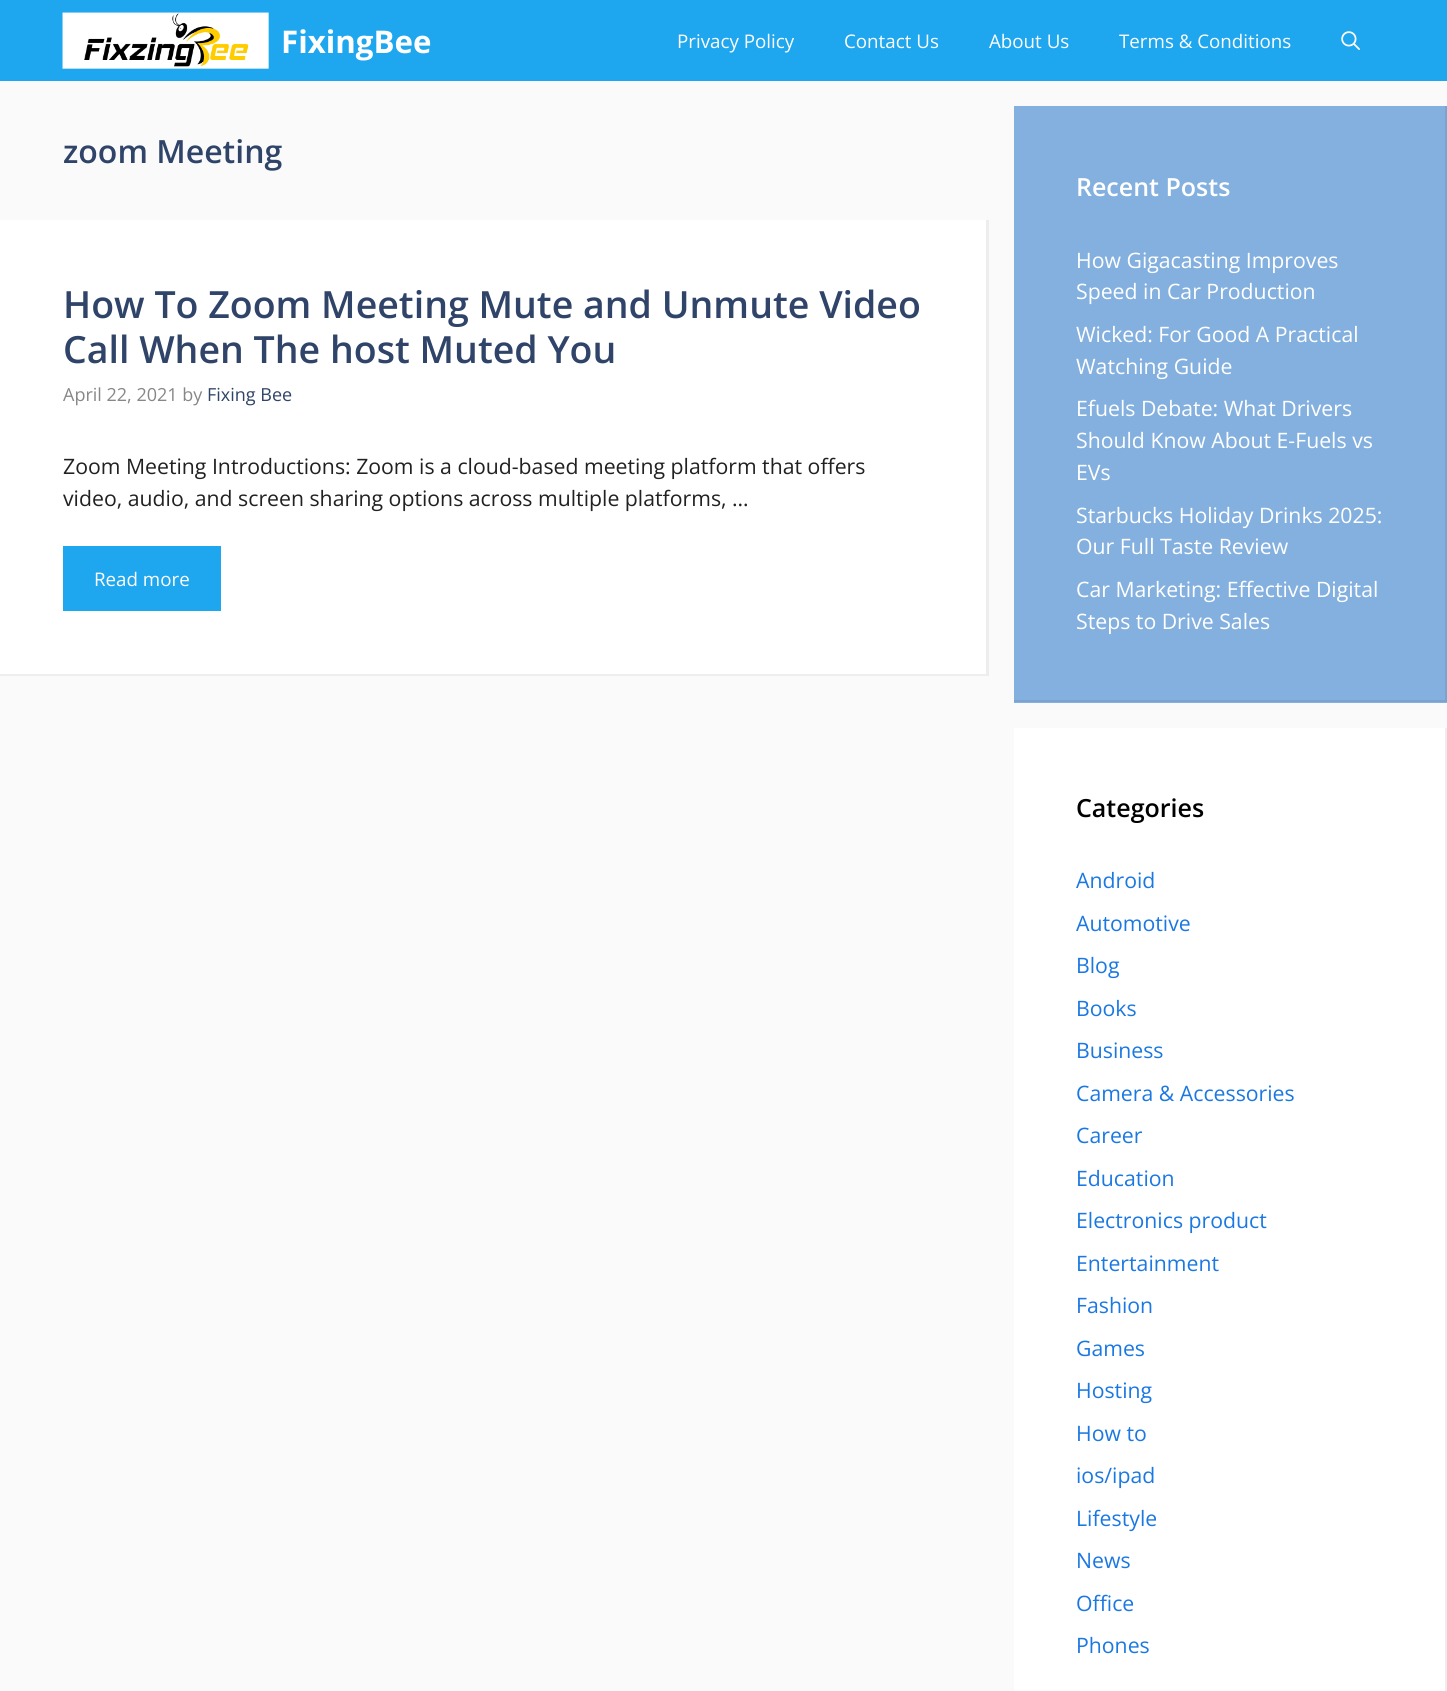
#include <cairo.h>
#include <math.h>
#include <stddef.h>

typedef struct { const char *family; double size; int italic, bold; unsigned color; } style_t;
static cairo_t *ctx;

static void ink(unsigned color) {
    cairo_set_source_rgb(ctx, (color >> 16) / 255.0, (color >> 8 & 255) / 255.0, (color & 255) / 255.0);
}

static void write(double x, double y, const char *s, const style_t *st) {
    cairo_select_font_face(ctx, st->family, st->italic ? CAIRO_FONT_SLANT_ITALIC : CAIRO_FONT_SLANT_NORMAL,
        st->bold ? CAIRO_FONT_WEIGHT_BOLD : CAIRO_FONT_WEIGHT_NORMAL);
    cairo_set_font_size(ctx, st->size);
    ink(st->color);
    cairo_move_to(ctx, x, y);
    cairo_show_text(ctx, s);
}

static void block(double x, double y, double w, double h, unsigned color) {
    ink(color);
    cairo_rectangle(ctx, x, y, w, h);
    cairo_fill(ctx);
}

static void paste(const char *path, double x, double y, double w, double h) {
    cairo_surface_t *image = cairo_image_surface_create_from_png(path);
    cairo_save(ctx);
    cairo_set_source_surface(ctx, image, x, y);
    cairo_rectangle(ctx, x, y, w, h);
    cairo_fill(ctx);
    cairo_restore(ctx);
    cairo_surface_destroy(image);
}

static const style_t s1 = {"Open Sans", 31.25, 0, 1, 0xffffff};
static const style_t s2 = {"Open Sans", 18.75, 0, 0, 0xffffff};
static const style_t s3 = {"Open Sans SemiBold", 32, 0, 0, 0x2f4468};
static const style_t s4 = {"Open Sans SemiBold", 37.5, 0, 0, 0x2f4468};
static const style_t s5 = {"Open Sans", 18, 0, 0, 0x878787};
static const style_t s6 = {"Open Sans", 18, 0, 0, 0x2f4468};
static const style_t s7 = {"Open Sans", 21.25, 0, 0, 0x212121};
static const style_t s8 = {"Open Sans SemiBold", 25, 0, 0, 0xffffff};
static const style_t s9 = {"Open Sans", 21.25, 0, 0, 0xffffff};
static const style_t s10 = {"Open Sans SemiBold", 25, 0, 0, 0x000000};
static const style_t s11 = {"Open Sans", 21.25, 0, 0, 0x1b78e2};

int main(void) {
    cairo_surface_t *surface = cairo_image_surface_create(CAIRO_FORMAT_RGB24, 1447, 1691);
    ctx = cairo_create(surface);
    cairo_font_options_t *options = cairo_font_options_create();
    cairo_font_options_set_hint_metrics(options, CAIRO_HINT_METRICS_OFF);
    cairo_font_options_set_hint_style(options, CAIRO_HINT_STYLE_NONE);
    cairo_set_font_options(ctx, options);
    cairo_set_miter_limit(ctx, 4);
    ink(0xfafafa);
    cairo_paint(ctx);
    block(0, 0, 1447, 81, 0x1ea6ef);
    paste("pic1.png", 62, 12, 207, 57);
    write(281, 53, "FixingBee", &s1);
    write(677, 48, "Privacy Policy", &s2);
    write(844, 48, "Contact Us", &s2);
    write(989, 48, "About Us", &s2);
    write(1119, 48, "Terms & Conditions", &s2);
    paste("pic2.png", 1341, 31, 19, 19);
    write(63, 163, "zoom Meeting", &s3);
    block(0, 220, 989, 456, 0xffffff);
    ink(0xededed);
    cairo_new_path(ctx);
    cairo_move_to(ctx, 989, 220);
    cairo_line_to(ctx, 989, 676);
    cairo_line_to(ctx, 986, 674);
    cairo_line_to(ctx, 986, 220);
    cairo_close_path(ctx);
    cairo_fill(ctx);
    cairo_set_source_rgba(ctx, 0, 0, 0, 0.07);
    cairo_new_path(ctx);
    cairo_move_to(ctx, 989, 676);
    cairo_line_to(ctx, 0, 676);
    cairo_line_to(ctx, 0, 674);
    cairo_line_to(ctx, 986, 674);
    cairo_close_path(ctx);
    cairo_fill(ctx);
    write(63, 318, "How To Zoom Meeting Mute and Unmute Video", &s4);
    write(63, 363, "Call When The host Muted You", &s4);
    write(63, 401, "April 22, 2021 by", &s5);
    write(207, 401, "Fixing Bee", &s6);
    write(63, 474, "Zoom Meeting Introductions: Zoom is a cloud-based meeting platform that offers", &s7);
    write(63, 506, "video, audio, and screen sharing options across multiple platforms, …", &s7);
    block(63, 546, 158, 65, 0x1ea6ef);
    write(94, 586, "Read more", &s2);
    block(1014, 106, 433, 597, 0x83b0de);
    ink(0x7aa4ce);
    cairo_new_path(ctx);
    cairo_move_to(ctx, 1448, 106);
    cairo_line_to(ctx, 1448, 702);
    cairo_line_to(ctx, 1445, 700);
    cairo_line_to(ctx, 1445, 106);
    cairo_close_path(ctx);
    cairo_fill(ctx);
    cairo_set_source_rgba(ctx, 0, 0, 0, 0.07);
    cairo_new_path(ctx);
    cairo_move_to(ctx, 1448, 702);
    cairo_line_to(ctx, 1014, 702);
    cairo_line_to(ctx, 1014, 700);
    cairo_line_to(ctx, 1445, 700);
    cairo_close_path(ctx);
    cairo_fill(ctx);
    write(1076, 196, "Recent Posts", &s8);
    write(1076, 268, "How Gigacasting Improves", &s9);
    write(1076, 299, "Speed in Car Production", &s9);
    write(1076, 342, "Wicked: For Good A Practical", &s9);
    write(1076, 374, "Watching Guide", &s9);
    write(1076, 416, "Efuels Debate: What Drivers", &s9);
    write(1076, 448, "Should Know About E-Fuels vs", &s9);
    write(1076, 480, "EVs", &s9);
    write(1076, 523, "Starbucks Holiday Drinks 2025:", &s9);
    write(1076, 554, "Our Full Taste Review", &s9);
    write(1076, 597, "Car Marketing: Effective Digital", &s9);
    write(1076, 629, "Steps to Drive Sales", &s9);
    block(1014, 728, 431, 963, 0xffffff);
    ink(0xededed);
    cairo_new_path(ctx);
    cairo_move_to(ctx, 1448, 728);
    cairo_line_to(ctx, 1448, 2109);
    cairo_line_to(ctx, 1445, 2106);
    cairo_line_to(ctx, 1445, 728);
    cairo_close_path(ctx);
    cairo_fill(ctx);
    write(1076, 817, "Categories", &s10);
    write(1076, 888, "Android", &s11);
    write(1076, 931, "Automotive", &s11);
    write(1076, 973, "Blog", &s11);
    write(1076, 1016, "Books", &s11);
    write(1076, 1058, "Business", &s11);
    write(1076, 1101, "Camera & Accessories", &s11);
    write(1076, 1143, "Career", &s11);
    write(1076, 1186, "Education", &s11);
    write(1076, 1228, "Electronics product", &s11);
    write(1076, 1271, "Entertainment", &s11);
    write(1076, 1313, "Fashion", &s11);
    write(1076, 1356, "Games", &s11);
    write(1076, 1398, "Hosting", &s11);
    write(1076, 1441, "How to", &s11);
    write(1076, 1483, "ios/ipad", &s11);
    write(1076, 1526, "Lifestyle", &s11);
    write(1076, 1568, "News", &s11);
    write(1076, 1611, "Office", &s11);
    write(1076, 1653, "Phones", &s11);
    cairo_surface_write_to_png(surface, "screenshot.png");
    cairo_font_options_destroy(options);
    cairo_destroy(ctx);
    cairo_surface_destroy(surface);
    return 0;
}
